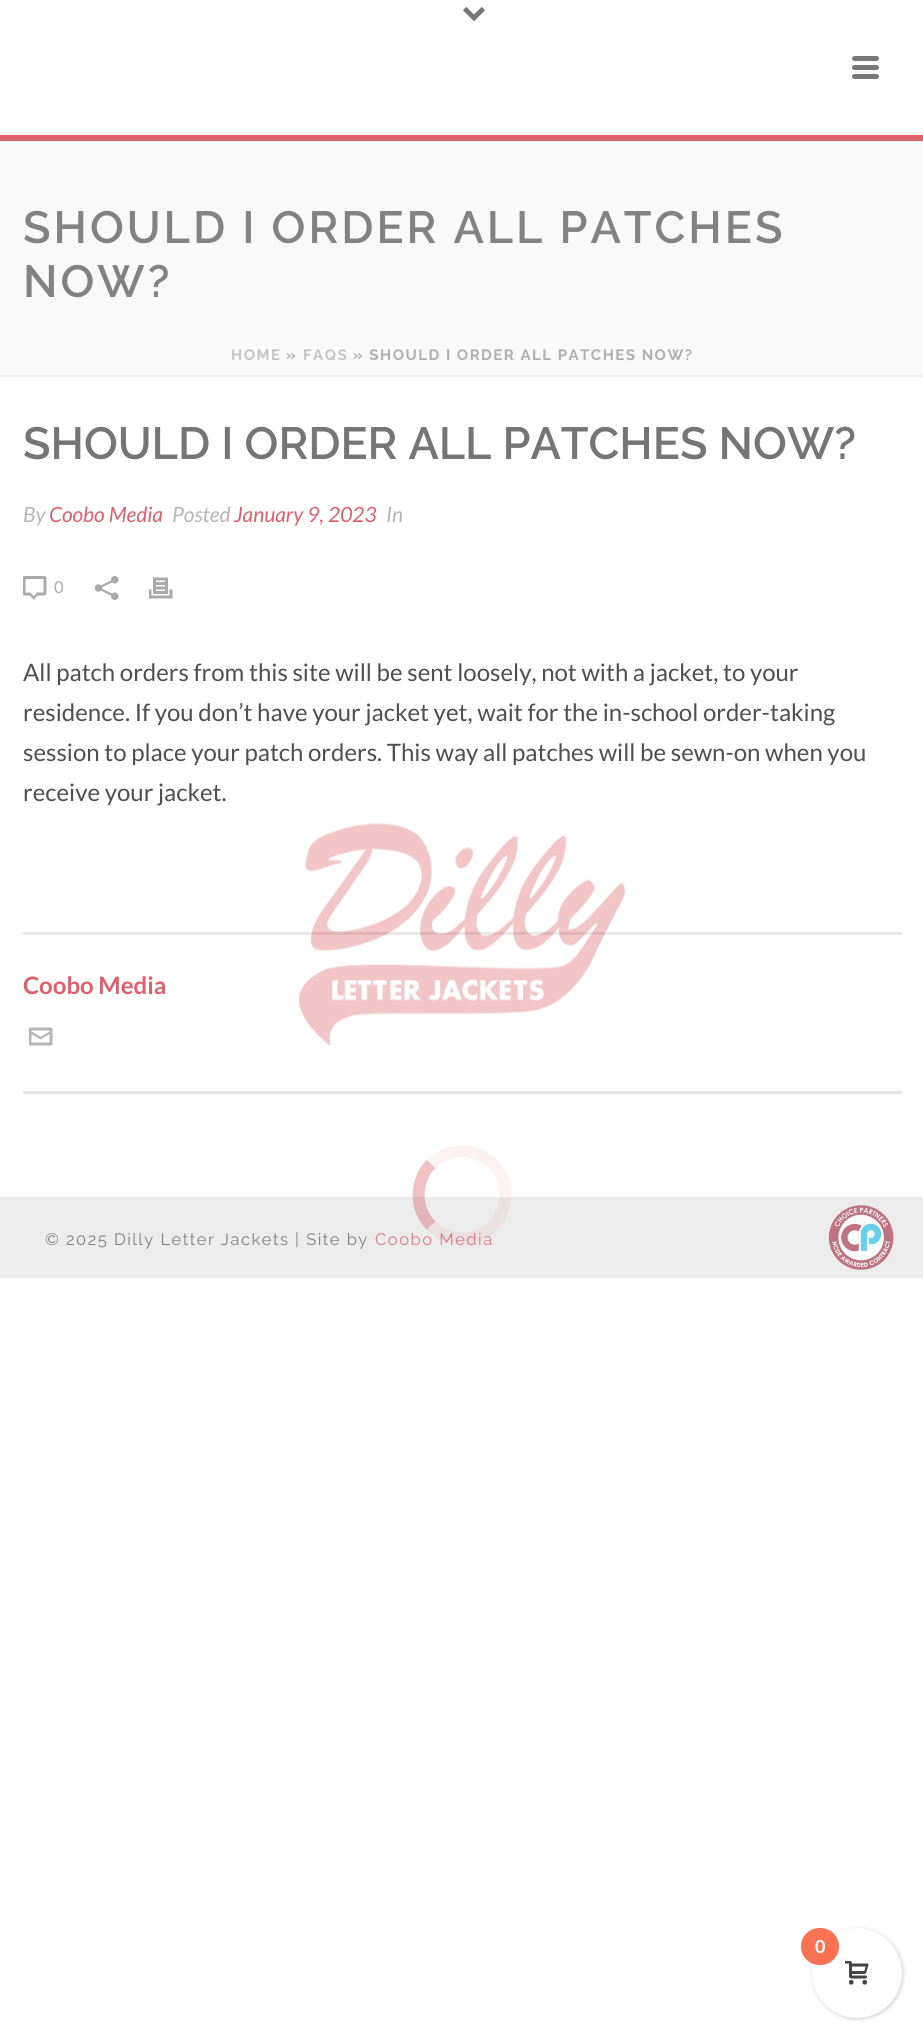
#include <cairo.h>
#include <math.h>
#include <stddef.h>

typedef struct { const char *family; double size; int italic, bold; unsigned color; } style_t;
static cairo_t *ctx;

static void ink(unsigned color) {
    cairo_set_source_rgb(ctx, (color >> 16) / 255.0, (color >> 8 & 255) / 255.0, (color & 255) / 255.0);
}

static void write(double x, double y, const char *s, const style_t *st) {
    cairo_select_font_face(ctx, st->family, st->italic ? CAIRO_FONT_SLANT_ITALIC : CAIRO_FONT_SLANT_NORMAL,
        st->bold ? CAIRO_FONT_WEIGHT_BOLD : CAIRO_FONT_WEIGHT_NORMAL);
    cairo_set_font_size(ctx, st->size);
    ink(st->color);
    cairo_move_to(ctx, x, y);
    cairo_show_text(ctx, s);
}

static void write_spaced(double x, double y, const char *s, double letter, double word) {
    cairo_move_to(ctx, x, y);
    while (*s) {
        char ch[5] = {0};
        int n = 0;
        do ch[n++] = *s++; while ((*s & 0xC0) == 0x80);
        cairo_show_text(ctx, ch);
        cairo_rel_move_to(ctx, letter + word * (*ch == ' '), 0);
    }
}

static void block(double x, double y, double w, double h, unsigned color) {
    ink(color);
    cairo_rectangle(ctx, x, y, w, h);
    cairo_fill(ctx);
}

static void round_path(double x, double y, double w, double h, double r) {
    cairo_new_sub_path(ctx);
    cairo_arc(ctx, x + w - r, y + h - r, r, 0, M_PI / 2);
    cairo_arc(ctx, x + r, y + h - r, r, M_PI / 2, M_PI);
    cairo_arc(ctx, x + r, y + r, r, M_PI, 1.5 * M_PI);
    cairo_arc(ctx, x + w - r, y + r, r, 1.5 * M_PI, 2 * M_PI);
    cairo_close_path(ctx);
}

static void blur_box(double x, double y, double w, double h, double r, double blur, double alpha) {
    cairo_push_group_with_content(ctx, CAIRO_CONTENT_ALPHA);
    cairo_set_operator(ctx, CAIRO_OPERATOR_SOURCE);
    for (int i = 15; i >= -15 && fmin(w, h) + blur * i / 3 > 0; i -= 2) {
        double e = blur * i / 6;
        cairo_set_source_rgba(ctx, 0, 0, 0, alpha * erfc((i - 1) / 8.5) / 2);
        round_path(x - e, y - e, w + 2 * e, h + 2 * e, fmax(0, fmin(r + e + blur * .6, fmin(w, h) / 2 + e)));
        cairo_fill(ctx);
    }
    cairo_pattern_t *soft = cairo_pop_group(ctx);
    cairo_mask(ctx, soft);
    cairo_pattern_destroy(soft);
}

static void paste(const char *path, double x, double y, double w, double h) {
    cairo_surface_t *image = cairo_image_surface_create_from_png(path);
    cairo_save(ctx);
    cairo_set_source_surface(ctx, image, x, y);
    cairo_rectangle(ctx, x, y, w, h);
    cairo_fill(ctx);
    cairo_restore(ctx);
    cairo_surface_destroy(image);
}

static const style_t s1 = {"Raleway SemiBold", 45, 0, 0, 0x757575};
static const style_t s2 = {"Lato", 21, 1, 0, 0xb6b6b6};
static const style_t s3 = {"Lato", 21, 1, 0, 0xdc616d};
static const style_t s4 = {"Lato", 16.5, 0, 0, 0xaaaaaa};
static const style_t s5 = {"Lato", 24, 0, 0, 0x4f4f4f};
static const style_t s6 = {"Lato", 24, 0, 1, 0xdc616d};
static const style_t s7 = {"Lato", 18, 0, 1, 0xffffff};

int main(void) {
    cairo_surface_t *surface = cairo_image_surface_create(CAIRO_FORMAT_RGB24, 923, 2039);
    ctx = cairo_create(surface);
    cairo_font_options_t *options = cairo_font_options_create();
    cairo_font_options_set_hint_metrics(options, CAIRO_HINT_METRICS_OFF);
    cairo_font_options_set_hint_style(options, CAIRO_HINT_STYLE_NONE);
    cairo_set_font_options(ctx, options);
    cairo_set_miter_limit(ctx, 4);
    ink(0xffffff);
    cairo_paint(ctx);
    block(0, 141, 923, 234, 0xf9f9f9);
    block(0, 375, 923, 2, 0xf2f2f2);
    block(0, 135, 923, 6, 0xdc616d);
    paste("pic1.png", 463, 7, 22, 14);
    ink(0x787878);
    round_path(852, 56, 27, 5, 2.5);
    cairo_fill(ctx);
    round_path(852, 65, 27, 5, 2.5);
    cairo_fill(ctx);
    round_path(852, 74, 27, 5, 2.5);
    cairo_fill(ctx);
    cairo_select_font_face(ctx, "Raleway SemiBold", CAIRO_FONT_SLANT_NORMAL, CAIRO_FONT_WEIGHT_NORMAL);
    cairo_set_font_size(ctx, 45);
    ink(0x828282);
    write_spaced(23, 243, "SHOULD I ORDER ALL PATCHES", 3, 0);
    write_spaced(23, 297, "NOW?", 3, 0);
    cairo_select_font_face(ctx, "Raleway", CAIRO_FONT_SLANT_NORMAL, CAIRO_FONT_WEIGHT_BOLD);
    cairo_set_font_size(ctx, 15);
    ink(0xc5c5c5);
    write_spaced(231, 360, "HOME", 1.5, 0);
    ink(0xb0b0b0);
    write_spaced(286, 360, "»", 1.5, 0);
    ink(0xc5c5c5);
    write_spaced(303, 360, "FAQS", 1.5, 0);
    ink(0xb0b0b0);
    write_spaced(353, 360, "» SHOULD I ORDER ALL PATCHES NOW?", 1.5, 0);
    write(23, 459, "SHOULD I ORDER ALL PATCHES NOW?", &s1);
    write(23, 522, "By", &s2);
    write(49, 522, "Coobo Media", &s3);
    write(172, 522, "Posted", &s2);
    write(234, 522, "January 9, 2023", &s3);
    write(386, 522, "In", &s2);
    paste("pic2.png", 23, 576, 24, 24);
    write(54, 593, "0", &s4);
    paste("pic3.png", 95, 576, 24, 24);
    paste("pic4.png", 149, 577, 24, 22);
    write(23, 681, "All patch orders from this site will be sent loosely, not with a jacket, to your", &s5);
    write(23, 721, "residence. If you don’t have your jacket yet, wait for the in-school order-taking", &s5);
    write(23, 761, "session to place your patch orders. This way all patches will be sewn-on when you", &s5);
    write(23, 801, "receive your jacket.", &s5);
    block(23, 932, 879, 3, 0xe7e7e7);
    block(23, 1091, 879, 3, 0xe7e7e7);
    write(23, 994, "Coobo Media", &s6);
    paste("pic5.png", 29, 1027, 24, 19);
    block(0, 1197, 923, 81, 0xececec);
    cairo_select_font_face(ctx, "Raleway", CAIRO_FONT_SLANT_NORMAL, CAIRO_FONT_WEIGHT_NORMAL);
    cairo_set_font_size(ctx, 16.5);
    ink(0x828282);
    write_spaced(45, 1245, "© 2025 Dilly Letter Jackets | Site by", 1.5, 0);
    ink(0xdf7d86);
    write_spaced(375, 1245, "Coobo Media", 1.5, 0);
    paste("pic6.png", 828, 1205, 66, 65);
    paste("pic7.png", 298, 823, 328, 223);
    cairo_new_path(ctx);
    cairo_move_to(ctx, 431, 1164);
    cairo_curve_to(ctx, 441.5, 1154, 456.5, 1149.5, 470.5, 1152);
    cairo_curve_to(ctx, 479, 1154, 486.5, 1158, 493, 1164);
    cairo_curve_to(ctx, 520, 1191.5, 500.5, 1238.5, 462, 1238.5);
    cairo_curve_to(ctx, 450.5, 1238.5, 439.5, 1233.5, 431, 1225.5);
    cairo_set_source_rgba(ctx, 0.808, 0.137, 0.204, 0.06);
    cairo_set_line_width(ctx, 12);
    cairo_stroke(ctx);
    cairo_new_path(ctx);
    cairo_move_to(ctx, 431, 1225.5);
    cairo_curve_to(ctx, 414.5, 1209, 414.5, 1181, 431, 1164);
    cairo_set_source_rgba(ctx, 0.808, 0.137, 0.204, 0.28);
    cairo_stroke(ctx);
    ink(0x000000);
    blur_box(813, 1929, 90, 90, 45, 2, 0.2);
    ink(0xffffff);
    cairo_arc(ctx, 857, 1973, 45, 0, 2 * M_PI);
    cairo_fill(ctx);
    ink(0xf97352);
    round_path(801, 1928, 38, 37, 18.5);
    cairo_fill(ctx);
    write(815, 1953, "0", &s7);
    paste("pic8.png", 845, 1961, 24, 24);
    cairo_surface_write_to_png(surface, "screenshot.png");
    cairo_font_options_destroy(options);
    cairo_destroy(ctx);
    cairo_surface_destroy(surface);
    return 0;
}
